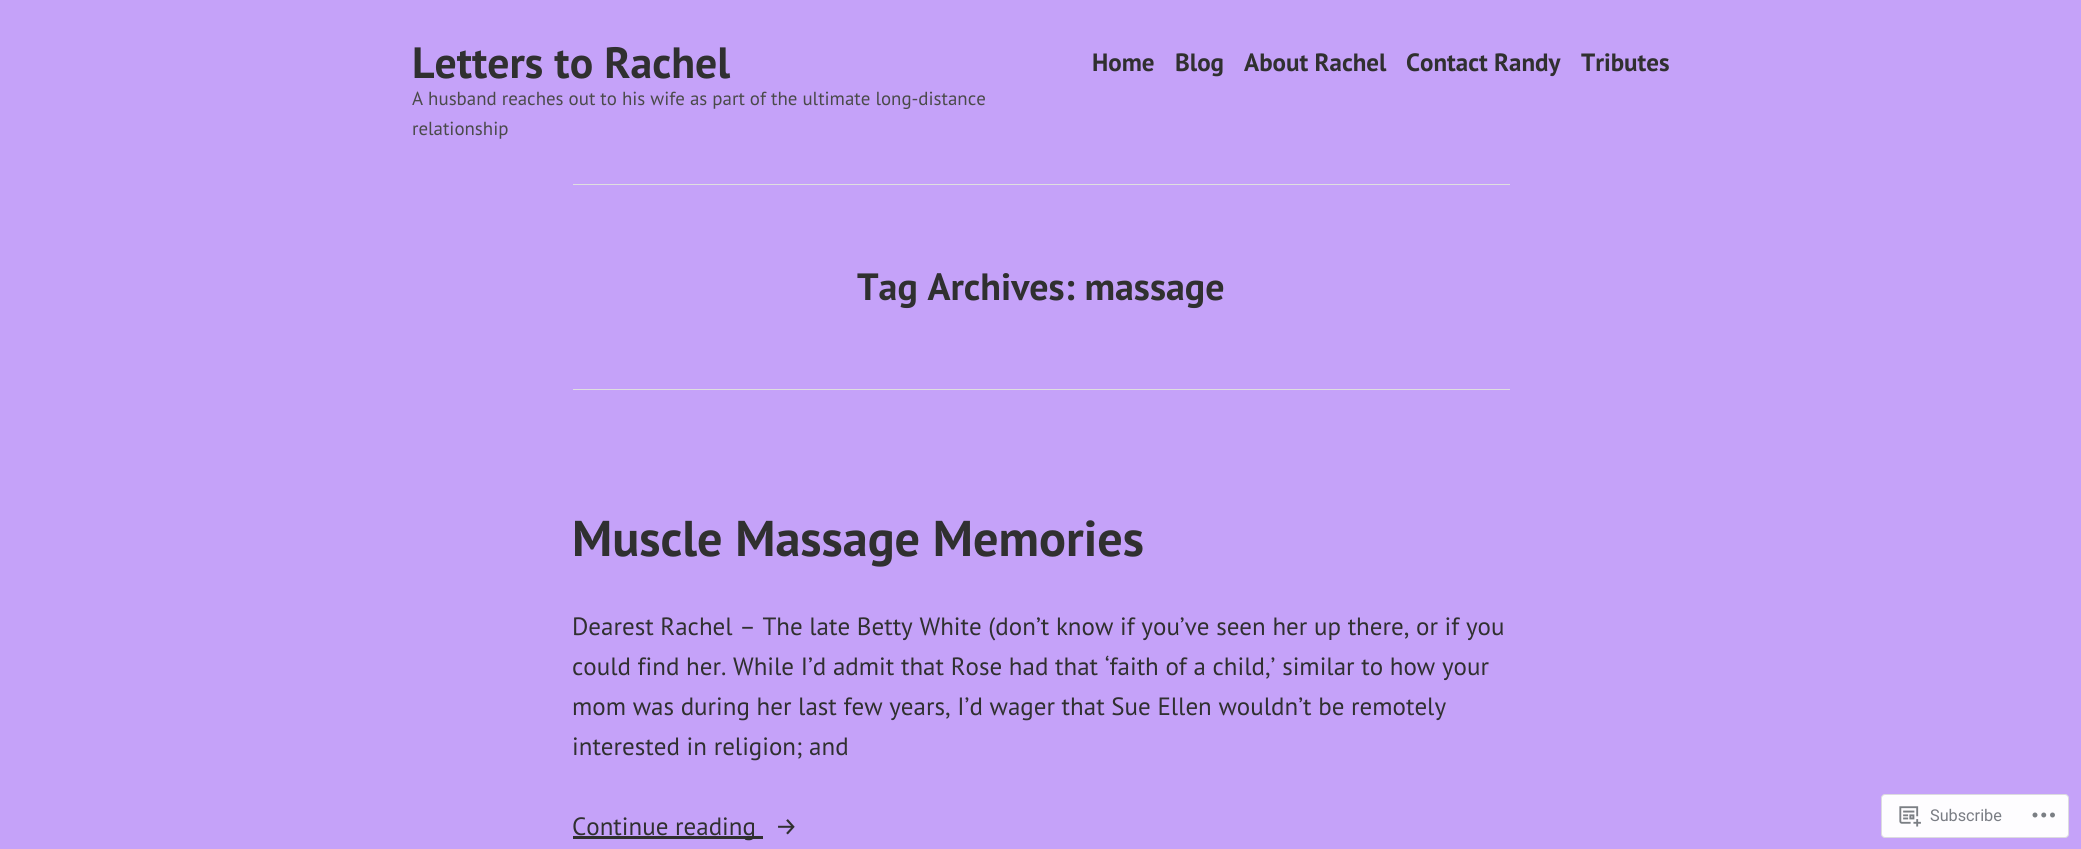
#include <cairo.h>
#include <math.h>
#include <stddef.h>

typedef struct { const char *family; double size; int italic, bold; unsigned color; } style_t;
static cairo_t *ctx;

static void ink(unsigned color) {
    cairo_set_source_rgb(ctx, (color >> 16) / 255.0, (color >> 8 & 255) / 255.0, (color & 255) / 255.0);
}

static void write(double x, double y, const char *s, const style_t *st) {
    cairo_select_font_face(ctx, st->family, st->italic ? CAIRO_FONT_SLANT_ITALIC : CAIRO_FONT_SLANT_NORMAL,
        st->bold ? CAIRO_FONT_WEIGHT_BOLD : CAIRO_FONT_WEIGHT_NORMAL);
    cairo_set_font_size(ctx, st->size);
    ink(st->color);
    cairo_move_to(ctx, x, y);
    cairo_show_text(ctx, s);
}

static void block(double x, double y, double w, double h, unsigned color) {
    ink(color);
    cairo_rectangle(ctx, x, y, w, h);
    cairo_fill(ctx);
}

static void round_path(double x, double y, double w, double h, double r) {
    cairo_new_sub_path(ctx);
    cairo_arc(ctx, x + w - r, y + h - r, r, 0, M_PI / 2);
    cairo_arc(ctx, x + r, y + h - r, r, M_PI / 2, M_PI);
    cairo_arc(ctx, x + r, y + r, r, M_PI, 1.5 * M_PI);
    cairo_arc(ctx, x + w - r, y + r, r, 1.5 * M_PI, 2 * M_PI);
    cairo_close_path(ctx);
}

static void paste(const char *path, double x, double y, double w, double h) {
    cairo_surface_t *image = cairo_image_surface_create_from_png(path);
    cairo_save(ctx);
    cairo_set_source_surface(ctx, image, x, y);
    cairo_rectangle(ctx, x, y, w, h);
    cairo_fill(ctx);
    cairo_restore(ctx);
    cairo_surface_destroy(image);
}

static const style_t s1 = {"PT Sans", 43.75, 0, 1, 0x303030};
static const style_t s2 = {"PT Sans", 25, 0, 1, 0x303030};
static const style_t s3 = {"PT Sans", 18.9, 0, 0, 0x4a4a4a};
static const style_t s4 = {"PT Sans", 38, 0, 1, 0x303030};
static const style_t s5 = {"PT Sans", 50.25, 0, 1, 0x303030};
static const style_t s6 = {"PT Sans", 25, 0, 0, 0x303030};
static const style_t s7 = {"Fira Sans", 25, 0, 0, 0x303030};
static const style_t s8 = {"Roboto", 16.25, 0, 0, 0x7a7d84};

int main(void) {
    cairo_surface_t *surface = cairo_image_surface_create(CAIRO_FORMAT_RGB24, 2081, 849);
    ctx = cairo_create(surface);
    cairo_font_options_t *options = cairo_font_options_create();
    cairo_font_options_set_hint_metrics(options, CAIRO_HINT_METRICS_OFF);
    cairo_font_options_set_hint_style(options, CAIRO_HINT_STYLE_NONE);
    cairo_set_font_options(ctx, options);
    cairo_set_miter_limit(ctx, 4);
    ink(0xc5a2f9);
    cairo_paint(ctx);
    write(412, 78, "Letters to Rachel", &s1);
    write(1092, 71, "Home", &s2);
    write(1175, 71, "Blog", &s2);
    write(1244, 71, "About Rachel", &s2);
    write(1406, 71, "Contact Randy", &s2);
    write(1581, 71, "Tributes", &s2);
    write(412, 105, "A husband reaches out to his wife as part of the ultimate long-distance", &s3);
    write(412, 135, "relationship", &s3);
    block(573, 184, 937, 1, 0xdfdfdf);
    write(857, 300, "Tag Archives: massage", &s4);
    block(573, 389, 937, 1, 0xdfdfdf);
    write(572, 556, "Muscle Massage Memories", &s5);
    write(572, 635, "Dearest Rachel – The late Betty White (don’t know if you’ve seen her up there, or if you", &s6);
    write(572, 675, "could find her. While I’d admit that Rose had that ‘faith of a child,’ similar to how your", &s6);
    write(572, 715, "mom was during her last few years, I’d wager that Sue Ellen wouldn’t be remotely", &s6);
    write(572, 755, "interested in religion; and", &s6);
    block(573, 836, 190, 3, 0x303030);
    write(572, 835, "Continue reading", &s6);
    write(775, 835, "→", &s7);
    ink(0xfefdff);
    round_path(1881.5, 794.5, 187, 43, 3.5);
    cairo_fill_preserve(ctx);
    ink(0xdcdbdf);
    cairo_set_line_width(ctx, 1);
    cairo_stroke(ctx);
    paste("pic1.png", 1899, 806, 22, 21);
    write(1930, 821, "Subscribe", &s8);
    paste("pic2.png", 2032, 812, 23, 6);
    cairo_surface_write_to_png(surface, "screenshot.png");
    cairo_font_options_destroy(options);
    cairo_destroy(ctx);
    cairo_surface_destroy(surface);
    return 0;
}
